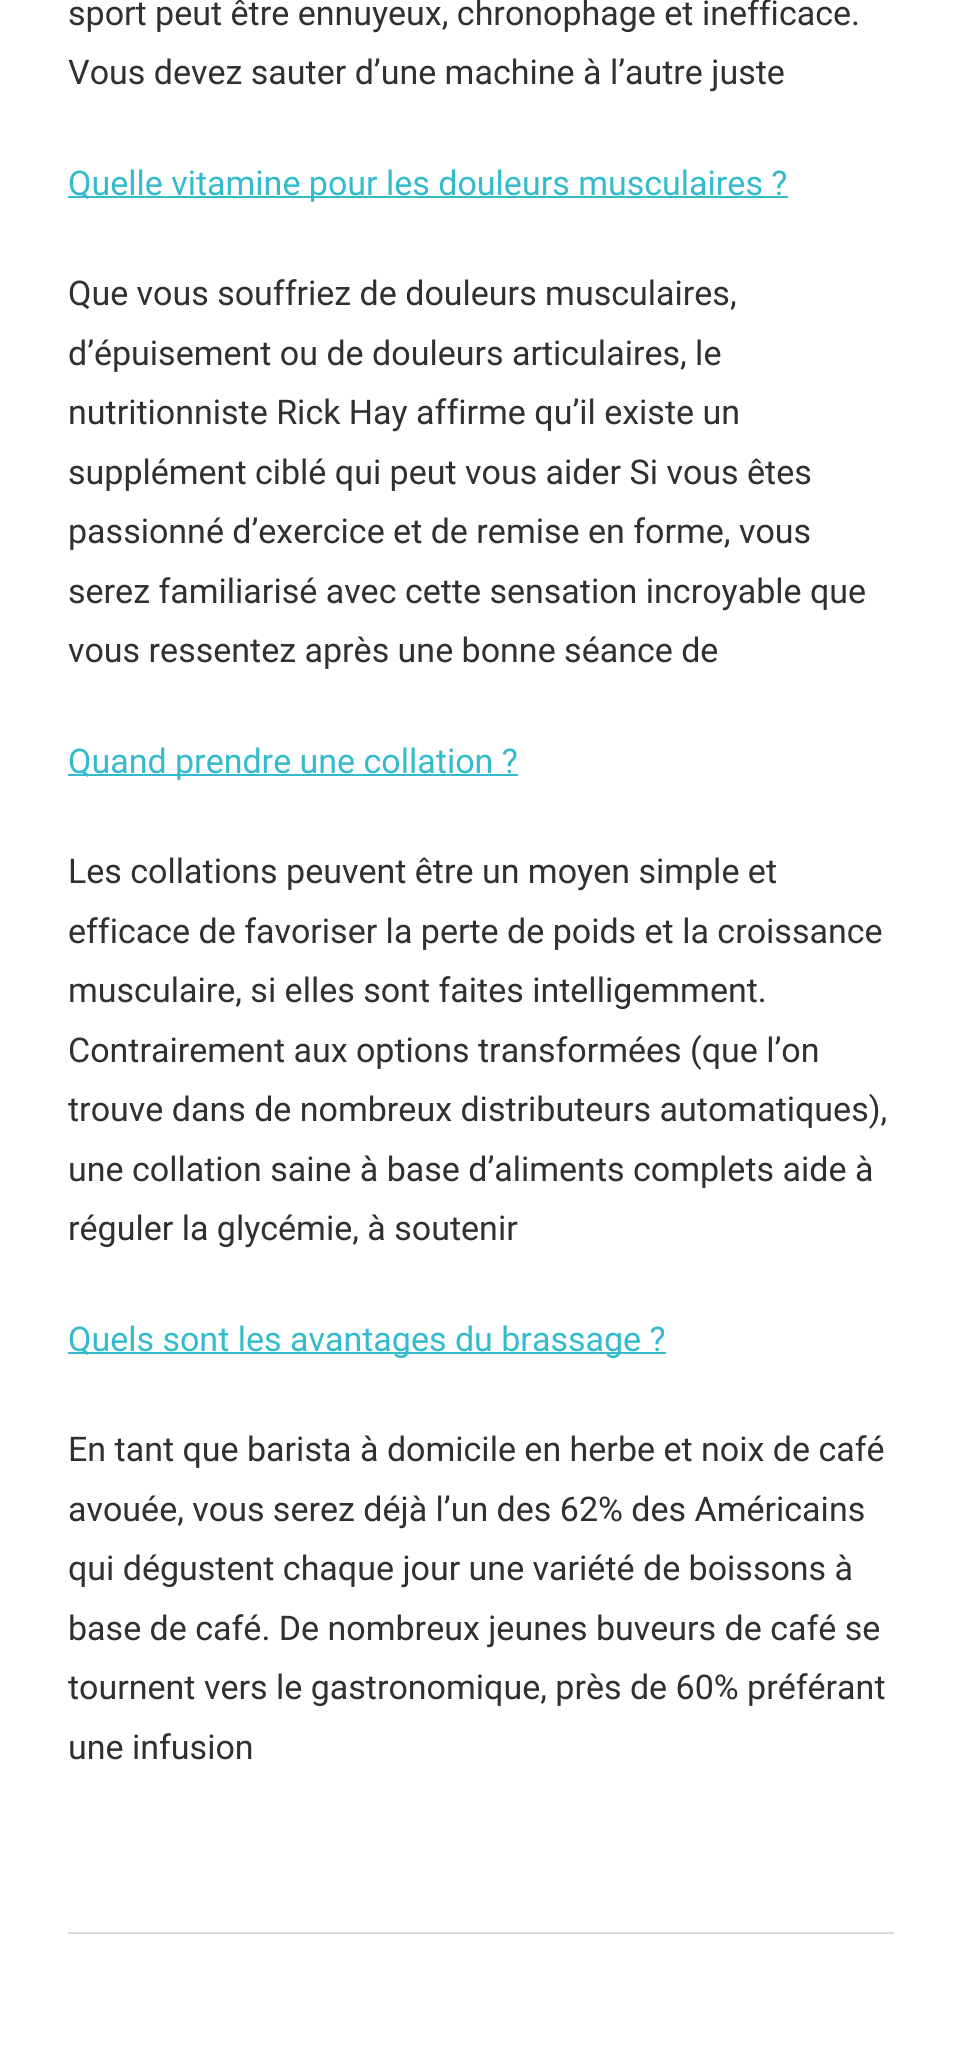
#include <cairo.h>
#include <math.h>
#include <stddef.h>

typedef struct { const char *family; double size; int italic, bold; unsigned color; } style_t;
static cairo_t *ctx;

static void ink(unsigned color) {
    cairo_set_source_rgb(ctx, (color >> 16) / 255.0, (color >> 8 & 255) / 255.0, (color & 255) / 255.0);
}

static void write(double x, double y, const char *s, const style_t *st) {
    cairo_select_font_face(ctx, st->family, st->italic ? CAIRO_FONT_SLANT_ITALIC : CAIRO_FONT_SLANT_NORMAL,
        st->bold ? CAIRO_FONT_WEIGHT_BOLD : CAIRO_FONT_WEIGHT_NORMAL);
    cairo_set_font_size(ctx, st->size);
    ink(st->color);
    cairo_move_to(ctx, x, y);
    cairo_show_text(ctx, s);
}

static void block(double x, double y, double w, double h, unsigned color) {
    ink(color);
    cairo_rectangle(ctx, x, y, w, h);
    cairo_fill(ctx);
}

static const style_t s1 = {"Roboto", 34, 0, 0, 0x303030};
static const style_t s2 = {"Roboto", 34, 0, 0, 0x33bbcc};

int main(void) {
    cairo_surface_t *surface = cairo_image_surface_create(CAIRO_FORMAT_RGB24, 962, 2069);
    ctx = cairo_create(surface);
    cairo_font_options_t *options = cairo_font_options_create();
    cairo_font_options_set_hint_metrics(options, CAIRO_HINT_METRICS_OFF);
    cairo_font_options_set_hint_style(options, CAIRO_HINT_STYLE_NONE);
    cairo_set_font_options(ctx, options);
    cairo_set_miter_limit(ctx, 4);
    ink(0xffffff);
    cairo_paint(ctx);
    write(68, 25, "sport peut être ennuyeux, chronophage et inefficace.", &s1);
    write(68, 84, "Vous devez sauter d’une machine à l’autre juste", &s1);
    block(68, 196, 720, 2, 0x33bbcc);
    write(68, 195, "Quelle vitamine pour les douleurs musculaires ?", &s2);
    write(68, 305, "Que vous souffriez de douleurs musculaires,", &s1);
    write(68, 365, "d’épuisement ou de douleurs articulaires, le", &s1);
    write(68, 424, "nutritionniste Rick Hay affirme qu’il existe un", &s1);
    write(68, 484, "supplément ciblé qui peut vous aider Si vous êtes", &s1);
    write(68, 543, "passionné d’exercice et de remise en forme, vous", &s1);
    write(68, 603, "serez familiarisé avec cette sensation incroyable que", &s1);
    write(68, 662, "vous ressentez après une bonne séance de", &s1);
    block(68, 774, 450, 2, 0x33bbcc);
    write(68, 773, "Quand prendre une collation ?", &s2);
    write(68, 883, "Les collations peuvent être un moyen simple et", &s1);
    write(68, 943, "efficace de favoriser la perte de poids et la croissance", &s1);
    write(68, 1002, "musculaire, si elles sont faites intelligemment.", &s1);
    write(68, 1062, "Contrairement aux options transformées (que l’on", &s1);
    write(68, 1121, "trouve dans de nombreux distributeurs automatiques),", &s1);
    write(68, 1181, "une collation saine à base d’aliments complets aide à", &s1);
    write(68, 1240, "réguler la glycémie, à soutenir", &s1);
    block(68, 1352, 598, 2, 0x33bbcc);
    write(68, 1351, "Quels sont les avantages du brassage ?", &s2);
    write(68, 1461, "En tant que barista à domicile en herbe et noix de café", &s1);
    write(68, 1521, "avouée, vous serez déjà l’un des 62% des Américains", &s1);
    write(68, 1580, "qui dégustent chaque jour une variété de boissons à", &s1);
    write(68, 1640, "base de café. De nombreux jeunes buveurs de café se", &s1);
    write(68, 1699, "tournent vers le gastronomique, près de 60% préférant", &s1);
    write(68, 1759, "une infusion", &s1);
    block(68, 1932, 826, 2, 0xd9d9d9);
    cairo_surface_write_to_png(surface, "screenshot.png");
    cairo_font_options_destroy(options);
    cairo_destroy(ctx);
    cairo_surface_destroy(surface);
    return 0;
}
